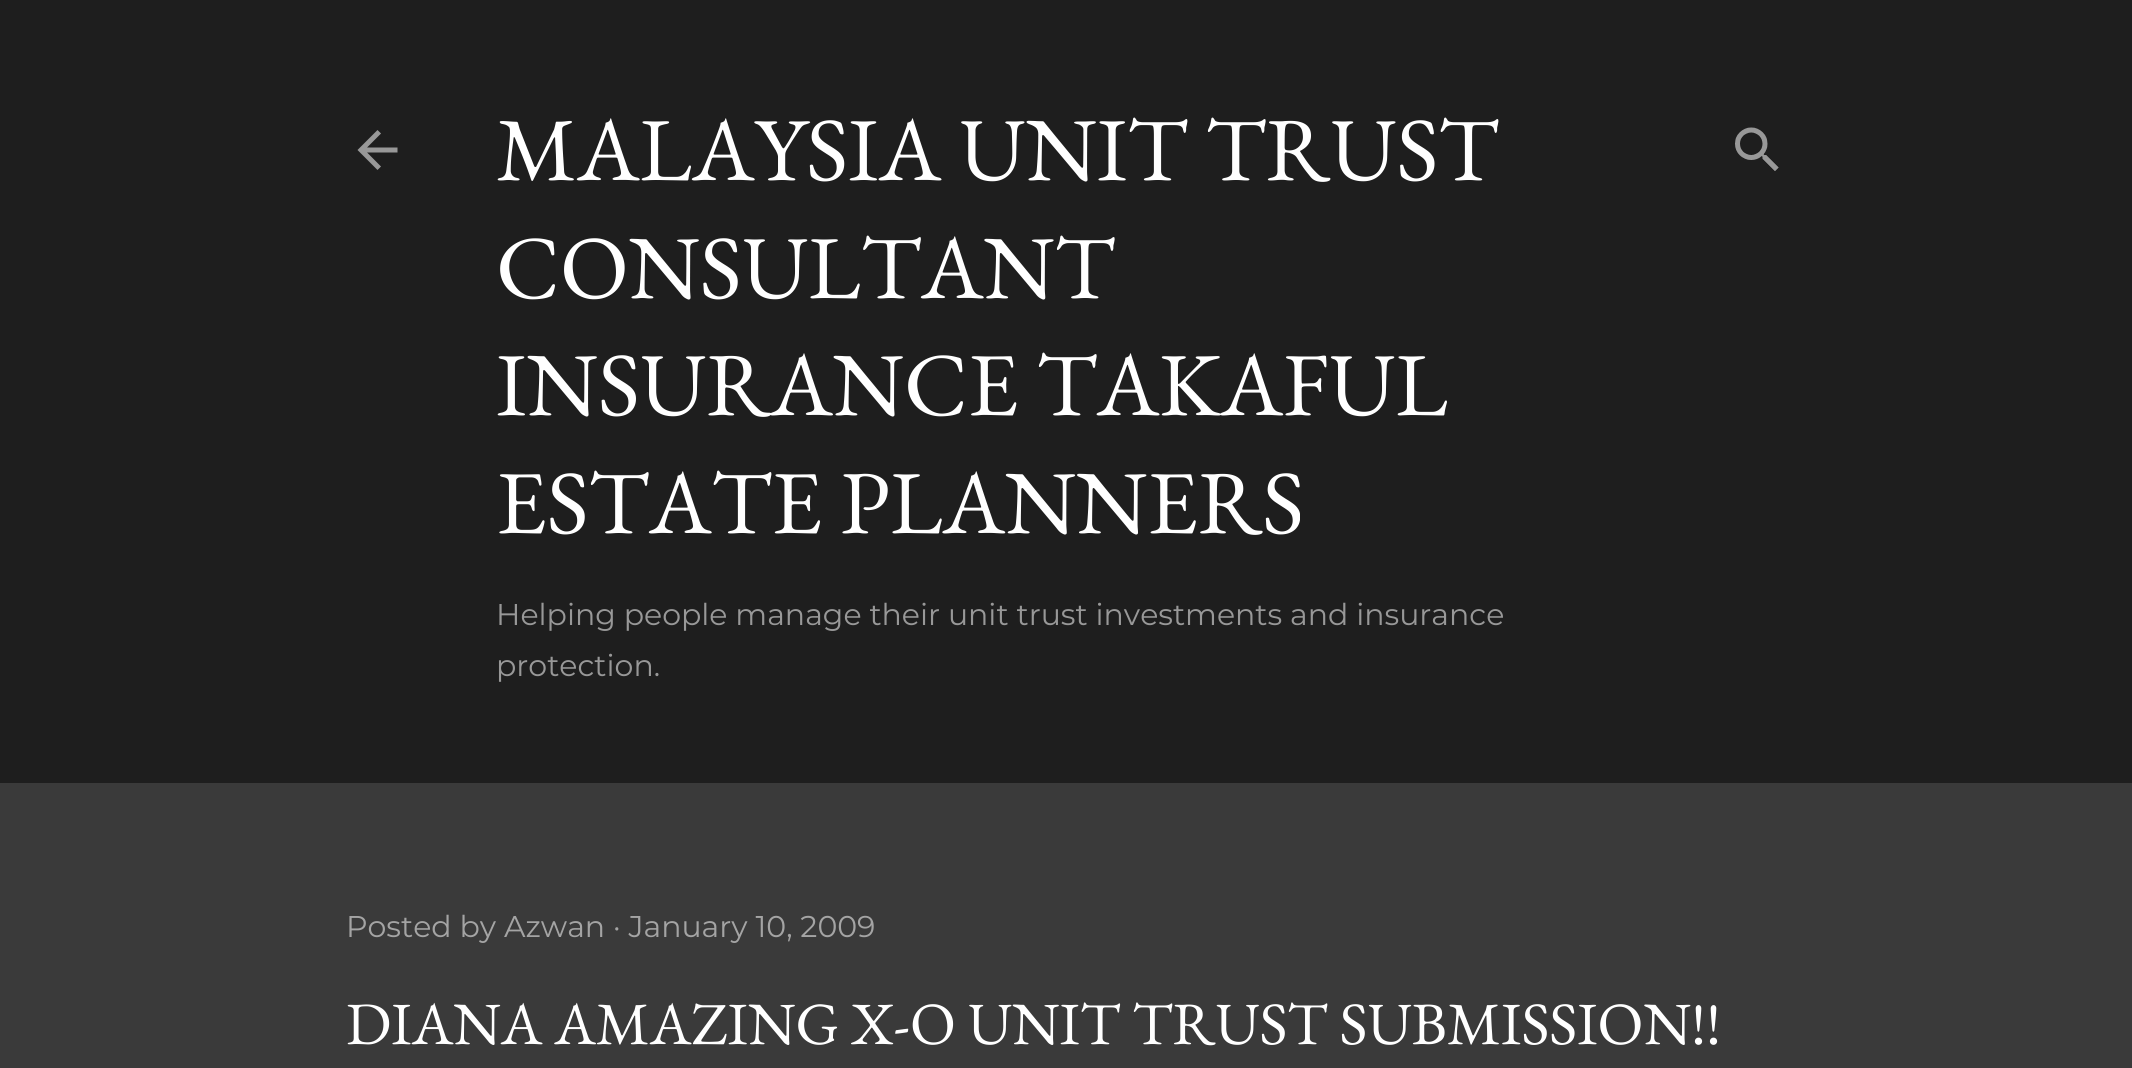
#include <cairo.h>
#include <math.h>
#include <stddef.h>

typedef struct { const char *family; double size; int italic, bold; unsigned color; } style_t;
static cairo_t *ctx;

static void ink(unsigned color) {
    cairo_set_source_rgb(ctx, (color >> 16) / 255.0, (color >> 8 & 255) / 255.0, (color & 255) / 255.0);
}

static void write(double x, double y, const char *s, const style_t *st) {
    cairo_select_font_face(ctx, st->family, st->italic ? CAIRO_FONT_SLANT_ITALIC : CAIRO_FONT_SLANT_NORMAL,
        st->bold ? CAIRO_FONT_WEIGHT_BOLD : CAIRO_FONT_WEIGHT_NORMAL);
    cairo_set_font_size(ctx, st->size);
    ink(st->color);
    cairo_move_to(ctx, x, y);
    cairo_show_text(ctx, s);
}

static void block(double x, double y, double w, double h, unsigned color) {
    ink(color);
    cairo_rectangle(ctx, x, y, w, h);
    cairo_fill(ctx);
}

static void paste(const char *path, double x, double y, double w, double h) {
    cairo_surface_t *image = cairo_image_surface_create_from_png(path);
    cairo_save(ctx);
    cairo_set_source_surface(ctx, image, x, y);
    cairo_rectangle(ctx, x, y, w, h);
    cairo_fill(ctx);
    cairo_restore(ctx);
    cairo_surface_destroy(image);
}

static const style_t s1 = {"EB Garamond", 90, 0, 0, 0xffffff};
static const style_t s2 = {"Montserrat", 30, 0, 0, 0x989898};
static const style_t s3 = {"Montserrat", 30, 0, 0, 0xa4a4a4};
static const style_t s4 = {"EB Garamond", 60, 0, 0, 0xffffff};

int main(void) {
    cairo_surface_t *surface = cairo_image_surface_create(CAIRO_FORMAT_RGB24, 2132, 1068);
    ctx = cairo_create(surface);
    cairo_font_options_t *options = cairo_font_options_create();
    cairo_font_options_set_hint_metrics(options, CAIRO_HINT_METRICS_OFF);
    cairo_font_options_set_hint_style(options, CAIRO_HINT_STYLE_NONE);
    cairo_set_font_options(ctx, options);
    cairo_set_miter_limit(ctx, 4);
    ink(0x3a3a3a);
    cairo_paint(ctx);
    block(0, 0, 2132, 783, 0x1e1e1e);
    paste("pic1.png", 357, 130, 41, 40);
    write(496, 180, "MALAYSIA UNIT TRUST", &s1);
    write(496, 298, "CONSULTANT", &s1);
    write(496, 415, "INSURANCE TAKAFUL", &s1);
    write(496, 533, "ESTATE PLANNERS", &s1);
    write(496, 625, "Helping people manage their unit trust investments and insurance", &s2);
    write(496, 676, "protection.", &s2);
    paste("pic2.png", 1735, 127, 44, 44);
    write(346, 937, "Posted by Azwan · January 10, 2009", &s3);
    write(346, 1044, "DIANA AMAZING X-O UNIT TRUST SUBMISSION!!", &s4);
    cairo_surface_write_to_png(surface, "screenshot.png");
    cairo_font_options_destroy(options);
    cairo_destroy(ctx);
    cairo_surface_destroy(surface);
    return 0;
}
